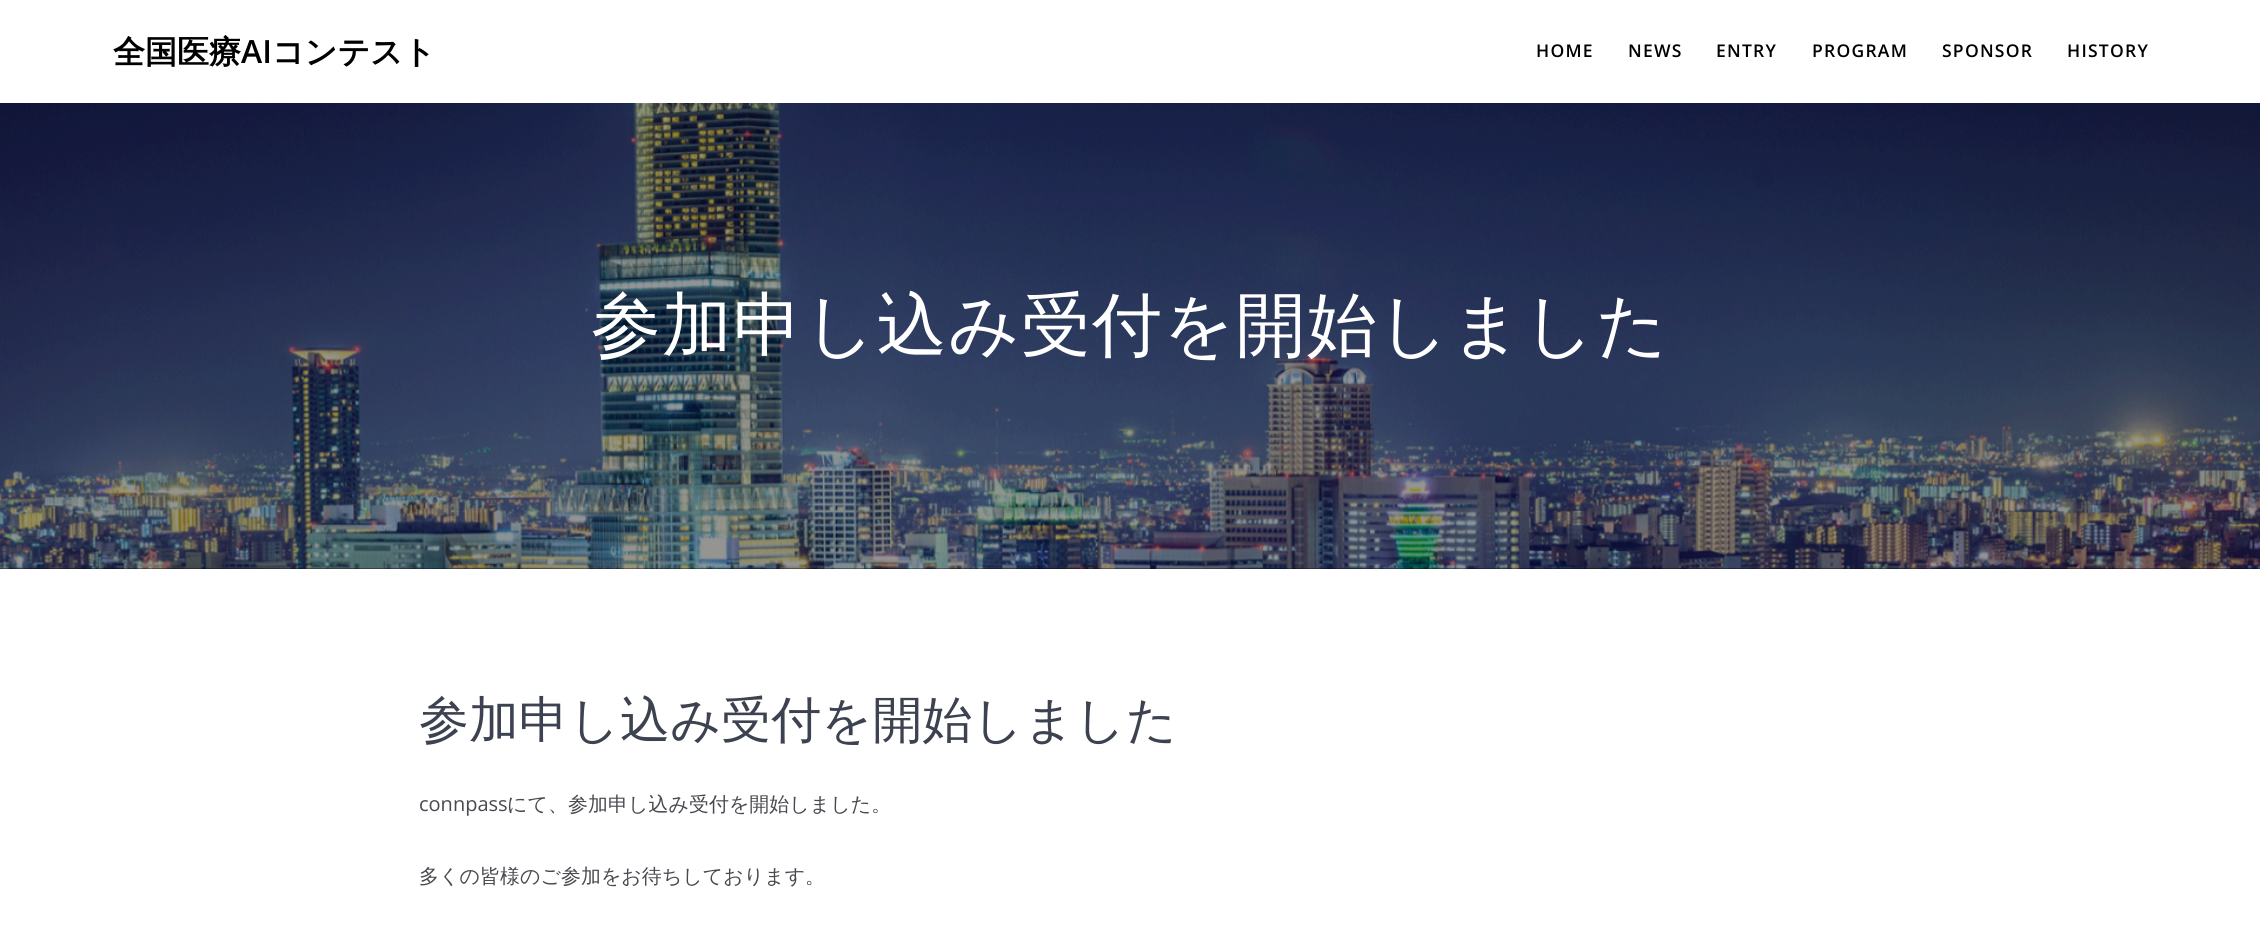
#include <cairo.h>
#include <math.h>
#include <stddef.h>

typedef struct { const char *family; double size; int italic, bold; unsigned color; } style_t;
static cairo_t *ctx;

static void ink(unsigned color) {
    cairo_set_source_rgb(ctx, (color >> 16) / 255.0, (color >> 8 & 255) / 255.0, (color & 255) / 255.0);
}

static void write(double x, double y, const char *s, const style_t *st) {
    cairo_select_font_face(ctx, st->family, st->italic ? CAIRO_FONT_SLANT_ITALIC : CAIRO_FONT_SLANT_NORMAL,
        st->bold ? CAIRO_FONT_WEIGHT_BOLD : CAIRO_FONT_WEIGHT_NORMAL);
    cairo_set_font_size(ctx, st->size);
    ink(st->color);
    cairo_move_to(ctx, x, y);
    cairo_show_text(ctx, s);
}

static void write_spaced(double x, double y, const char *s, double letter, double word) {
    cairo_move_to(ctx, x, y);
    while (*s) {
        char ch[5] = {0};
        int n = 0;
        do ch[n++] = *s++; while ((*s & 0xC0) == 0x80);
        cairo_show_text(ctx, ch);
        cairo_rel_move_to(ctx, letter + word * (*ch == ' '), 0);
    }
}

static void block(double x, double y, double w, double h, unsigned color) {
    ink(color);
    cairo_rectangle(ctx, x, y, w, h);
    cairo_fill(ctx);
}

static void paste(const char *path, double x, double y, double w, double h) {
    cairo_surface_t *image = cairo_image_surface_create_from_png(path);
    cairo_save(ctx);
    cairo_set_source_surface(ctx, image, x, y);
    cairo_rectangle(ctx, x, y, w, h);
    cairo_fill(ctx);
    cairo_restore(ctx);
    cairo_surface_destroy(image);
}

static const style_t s1 = {"WenQuanYi Zen Hei", 32, 0, 1, 0x000000};
static const style_t s2 = {"Open Sans SemiBold", 32, 0, 0, 0x000000};
static const style_t s3 = {"WenQuanYi Zen Hei Medium", 50, 0, 0, 0x3c424f};
static const style_t s4 = {"Open Sans", 20, 0, 0, 0x484a50};
static const style_t s5 = {"WenQuanYi Zen Hei Medium", 20, 0, 0, 0x484a50};

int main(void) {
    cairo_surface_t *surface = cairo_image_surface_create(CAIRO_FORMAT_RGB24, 2260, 944);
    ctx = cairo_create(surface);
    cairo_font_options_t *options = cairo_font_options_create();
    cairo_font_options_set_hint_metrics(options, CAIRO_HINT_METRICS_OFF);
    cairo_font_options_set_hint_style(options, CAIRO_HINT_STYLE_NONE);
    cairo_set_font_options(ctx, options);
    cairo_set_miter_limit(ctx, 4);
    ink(0xffffff);
    cairo_paint(ctx);
    write(113, 63, "全国医療", &s1);
    write(241, 63, "AI", &s2);
    write(272, 63, "コンテスト", &s1);
    cairo_select_font_face(ctx, "Open Sans SemiBold", CAIRO_FONT_SLANT_NORMAL, CAIRO_FONT_WEIGHT_NORMAL);
    cairo_set_font_size(ctx, 17.5);
    write_spaced(1536, 57, "HOME", 1.25, 0);
    write_spaced(1628, 57, "NEWS", 1.25, 0);
    write_spaced(1716, 57, "ENTRY", 1.25, 0);
    write_spaced(1812, 57, "PROGRAM", 1.25, 0);
    write_spaced(1942, 57, "SPONSOR", 1.25, 0);
    write_spaced(2067, 57, "HISTORY", 1.25, 0);
    block(0, 568, 2260, 1, 0x000000);
    paste("pic1.png", 0, 103, 2260, 466);
    cairo_select_font_face(ctx, "WenQuanYi Zen Hei Medium", CAIRO_FONT_SLANT_NORMAL, CAIRO_FONT_WEIGHT_NORMAL);
    cairo_set_font_size(ctx, 70);
    ink(0xffffff);
    write_spaced(591, 349, "参加申し込み受付を開始しました", 1.1, 0);
    write(419, 737, "参加申し込み受付を開始しました", &s3);
    write(419, 811, "connpass", &s4);
    write(507, 811, "にて、参加申し込み受付を開始しました。", &s5);
    write(419, 883, "多くの皆様のご参加をお待ちしております。", &s5);
    cairo_surface_write_to_png(surface, "screenshot.png");
    cairo_font_options_destroy(options);
    cairo_destroy(ctx);
    cairo_surface_destroy(surface);
    return 0;
}
